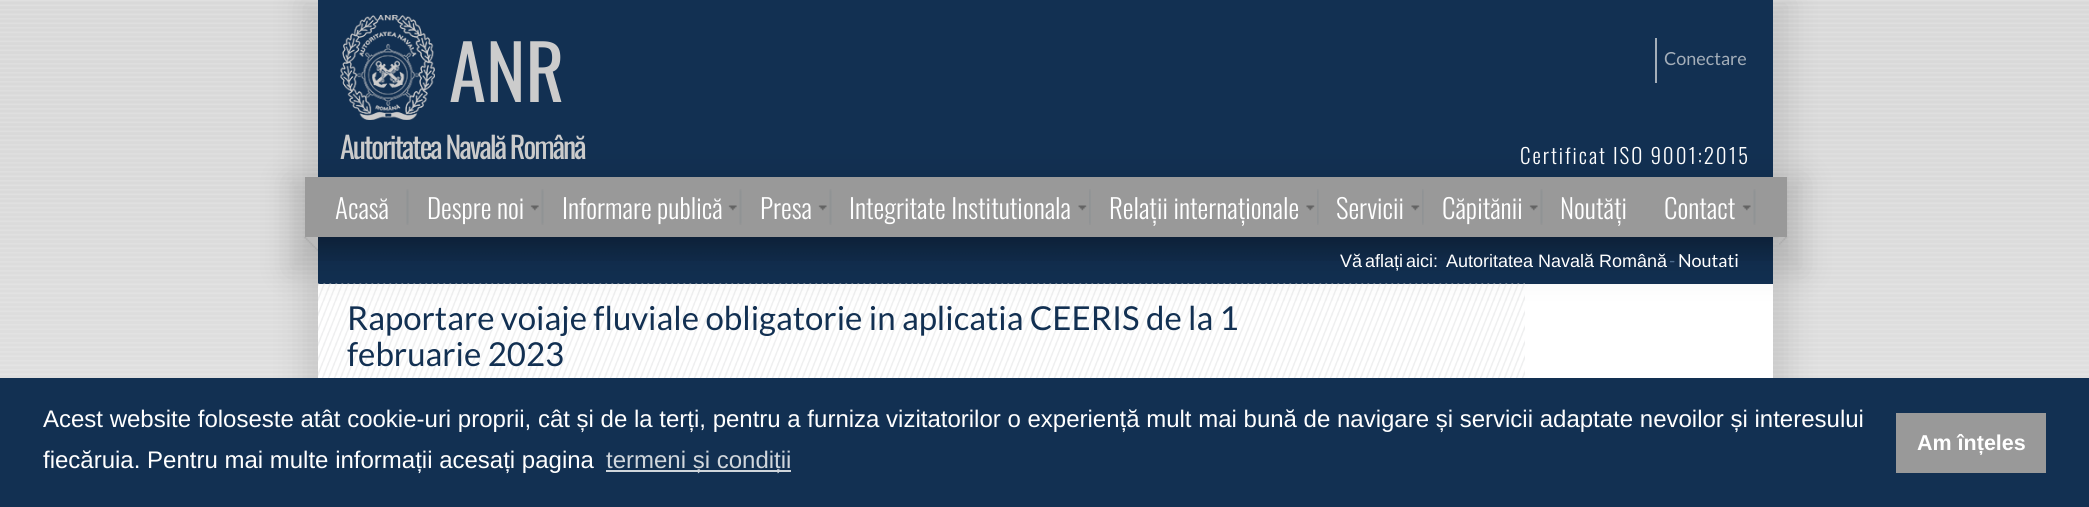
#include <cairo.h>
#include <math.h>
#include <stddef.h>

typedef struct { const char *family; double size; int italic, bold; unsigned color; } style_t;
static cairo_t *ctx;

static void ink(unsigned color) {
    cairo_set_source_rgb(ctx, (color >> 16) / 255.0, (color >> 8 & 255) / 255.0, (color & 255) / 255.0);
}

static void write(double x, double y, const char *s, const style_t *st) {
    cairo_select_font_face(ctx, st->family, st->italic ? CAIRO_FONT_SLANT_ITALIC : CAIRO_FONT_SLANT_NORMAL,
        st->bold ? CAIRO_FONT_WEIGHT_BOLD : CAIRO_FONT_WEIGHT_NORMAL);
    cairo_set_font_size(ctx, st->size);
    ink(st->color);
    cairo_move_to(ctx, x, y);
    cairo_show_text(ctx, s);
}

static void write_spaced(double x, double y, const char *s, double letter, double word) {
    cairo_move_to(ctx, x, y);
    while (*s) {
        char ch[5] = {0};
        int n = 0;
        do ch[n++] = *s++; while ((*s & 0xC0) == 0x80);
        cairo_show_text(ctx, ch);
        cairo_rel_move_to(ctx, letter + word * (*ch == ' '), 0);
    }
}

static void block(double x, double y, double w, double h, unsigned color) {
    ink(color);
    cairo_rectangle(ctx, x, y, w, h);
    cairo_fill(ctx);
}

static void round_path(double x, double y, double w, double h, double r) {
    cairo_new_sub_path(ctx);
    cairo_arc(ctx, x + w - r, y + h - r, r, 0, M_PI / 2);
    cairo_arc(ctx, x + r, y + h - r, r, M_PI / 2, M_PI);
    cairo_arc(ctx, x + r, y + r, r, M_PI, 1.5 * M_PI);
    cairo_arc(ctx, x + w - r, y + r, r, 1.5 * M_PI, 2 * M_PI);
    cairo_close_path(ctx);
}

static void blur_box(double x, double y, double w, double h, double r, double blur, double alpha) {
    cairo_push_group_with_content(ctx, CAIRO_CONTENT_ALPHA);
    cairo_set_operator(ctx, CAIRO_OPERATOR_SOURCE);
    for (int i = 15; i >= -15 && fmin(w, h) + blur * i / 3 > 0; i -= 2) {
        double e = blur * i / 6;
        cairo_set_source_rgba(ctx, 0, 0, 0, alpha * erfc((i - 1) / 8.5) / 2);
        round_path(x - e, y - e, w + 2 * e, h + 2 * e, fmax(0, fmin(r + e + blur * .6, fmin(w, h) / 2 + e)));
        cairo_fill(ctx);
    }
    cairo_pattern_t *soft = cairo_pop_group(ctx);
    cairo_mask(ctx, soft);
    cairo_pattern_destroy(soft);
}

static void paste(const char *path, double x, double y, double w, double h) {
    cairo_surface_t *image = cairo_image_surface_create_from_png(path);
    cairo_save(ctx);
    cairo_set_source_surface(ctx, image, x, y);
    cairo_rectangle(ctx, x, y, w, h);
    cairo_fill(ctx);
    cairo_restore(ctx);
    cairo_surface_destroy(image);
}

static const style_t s1 = {"Oswald", 75, 0, 0, 0xcccccc};
static const style_t s2 = {"Lato", 18, 0, 0, 0xa4aeb9};
static const style_t s3 = {"Oswald Light", 27, 0, 0, 0xffffff};
static const style_t s4 = {"Liberation Sans", 18, 0, 0, 0xffffff};
static const style_t s5 = {"Lato", 18, 0, 0, 0x506e90};
static const style_t s6 = {"Lato", 18, 0, 0, 0xffffff};
static const style_t s7 = {"Lato", 33, 0, 0, 0x123052};
static const style_t s8 = {"Liberation Sans", 24, 0, 0, 0xffffff};
static const style_t s9 = {"Liberation Sans", 24, 0, 0, 0xd0d6dc};
static const style_t s10 = {"Liberation Sans", 21.5, 0, 1, 0xffffff};

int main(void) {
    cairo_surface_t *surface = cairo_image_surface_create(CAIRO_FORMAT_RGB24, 2089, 507);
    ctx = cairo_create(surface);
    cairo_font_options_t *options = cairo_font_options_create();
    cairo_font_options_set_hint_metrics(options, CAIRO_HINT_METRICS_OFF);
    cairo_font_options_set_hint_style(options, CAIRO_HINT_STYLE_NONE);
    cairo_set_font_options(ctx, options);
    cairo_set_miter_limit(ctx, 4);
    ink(0xffffff);
    cairo_paint(ctx);
    paste("pic1.png", 0, 0, 2089, 378);
    ink(0x000000);
    blur_box(300, 0, 1491, 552, 0, 15, 0.1);
    block(318, 0, 1455, 284, 0x123052);
    paste("pic2.png", 340, 15, 95, 105);
    write(449, 102, "ANR", &s1);
    cairo_set_font_size(ctx, 30);
    write_spaced(340, 159, "Autoritatea Navală Română", -1.95, 0);
    block(1655, 38, 2, 45, 0xa4aeb9);
    write(1664, 65, "Conectare", &s2);
    cairo_select_font_face(ctx, "Oswald Light", CAIRO_FONT_SLANT_NORMAL, CAIRO_FONT_WEIGHT_NORMAL);
    cairo_set_font_size(ctx, 21);
    ink(0xffffff);
    write_spaced(1520, 164, "Certificat ISO 9001:2015", 1.95, 0);
    paste("pic12.png", 318, 237, 1455, 24);
    block(318, 284, 1455, 94, 0xffffff);
    paste("pic13.png", 318, 283, 1207, 95);
    cairo_set_source_rgba(ctx, 1, 1, 1, 0.5);
    cairo_rectangle(ctx, 318, 284, 1207, 94);
    cairo_fill(ctx);
    ink(0x000000);
    blur_box(287, 177, 1518, 96, 0, 15, 0.1);
    block(305, 177, 1482, 60, 0x999999);
    paste("pic3.png", 406, 189, 3, 36);
    write(335, 219, "Acasă", &s3);
    paste("pic3.png", 541, 189, 3, 36);
    paste("pic4.png", 530, 205, 9, 6);
    write(427, 219, "Despre noi", &s3);
    paste("pic3.png", 739, 189, 3, 36);
    paste("pic4.png", 728, 205, 9, 6);
    write(562, 219, "Informare publică", &s3);
    paste("pic3.png", 829, 189, 3, 36);
    paste("pic5.png", 818, 205, 9, 6);
    write(760, 219, "Presa", &s3);
    paste("pic6.png", 1089, 189, 2, 36);
    paste("pic7.png", 1078, 205, 9, 6);
    write(849, 219, "Integritate Institutionala", &s3);
    paste("pic8.png", 1317, 189, 2, 36);
    paste("pic9.png", 1306, 205, 9, 6);
    write(1109, 219, "Relații internaționale", &s3);
    paste("pic8.png", 1422, 189, 2, 36);
    paste("pic9.png", 1411, 205, 9, 6);
    write(1336, 219, "Servicii", &s3);
    paste("pic3.png", 1540, 189, 3, 36);
    paste("pic5.png", 1529, 205, 9, 6);
    write(1442, 219, "Căpitănii", &s3);
    write(1560, 219, "Noutăți", &s3);
    paste("pic3.png", 1753, 189, 3, 36);
    paste("pic5.png", 1742, 205, 9, 6);
    write(1664, 219, "Contact", &s3);
    paste("pic10.png", 304, 237, 14, 14);
    paste("pic11.png", 1779, 237, 8, 8);
    cairo_select_font_face(ctx, "Liberation Sans", CAIRO_FONT_SLANT_NORMAL, CAIRO_FONT_WEIGHT_NORMAL);
    cairo_set_font_size(ctx, 18);
    write_spaced(1340, 267, "Vă aflați aici:", 0, -2);
    write(1446, 267, "Autoritatea Navală Română", &s4);
    write(1669, 267, "-", &s5);
    write(1678, 267, "Noutati", &s6);
    write(347, 330, "Raportare voiaje fluviale obligatorie in aplicatia CEERIS de la 1", &s7);
    write(347, 366, "februarie 2023", &s7);
    block(0, 378, 2089, 129, 0x123052);
    write(43, 427, "Acest website foloseste atât cookie-uri proprii, cât și de la terți, pentru a furniza vizitatorilor o experiență mult mai bună de navigare și servicii adaptate nevoilor și interesului", &s8);
    write(43, 468, "fiecăruia. Pentru mai multe informații acesați pagina", &s8);
    block(606, 470, 185, 2, 0xd0d6dc);
    write(606, 468, "termeni și condiții", &s9);
    block(1896, 413, 150, 60, 0x999999);
    write(1917, 450, "Am înțeles", &s10);
    cairo_surface_write_to_png(surface, "screenshot.png");
    cairo_font_options_destroy(options);
    cairo_destroy(ctx);
    cairo_surface_destroy(surface);
    return 0;
}
